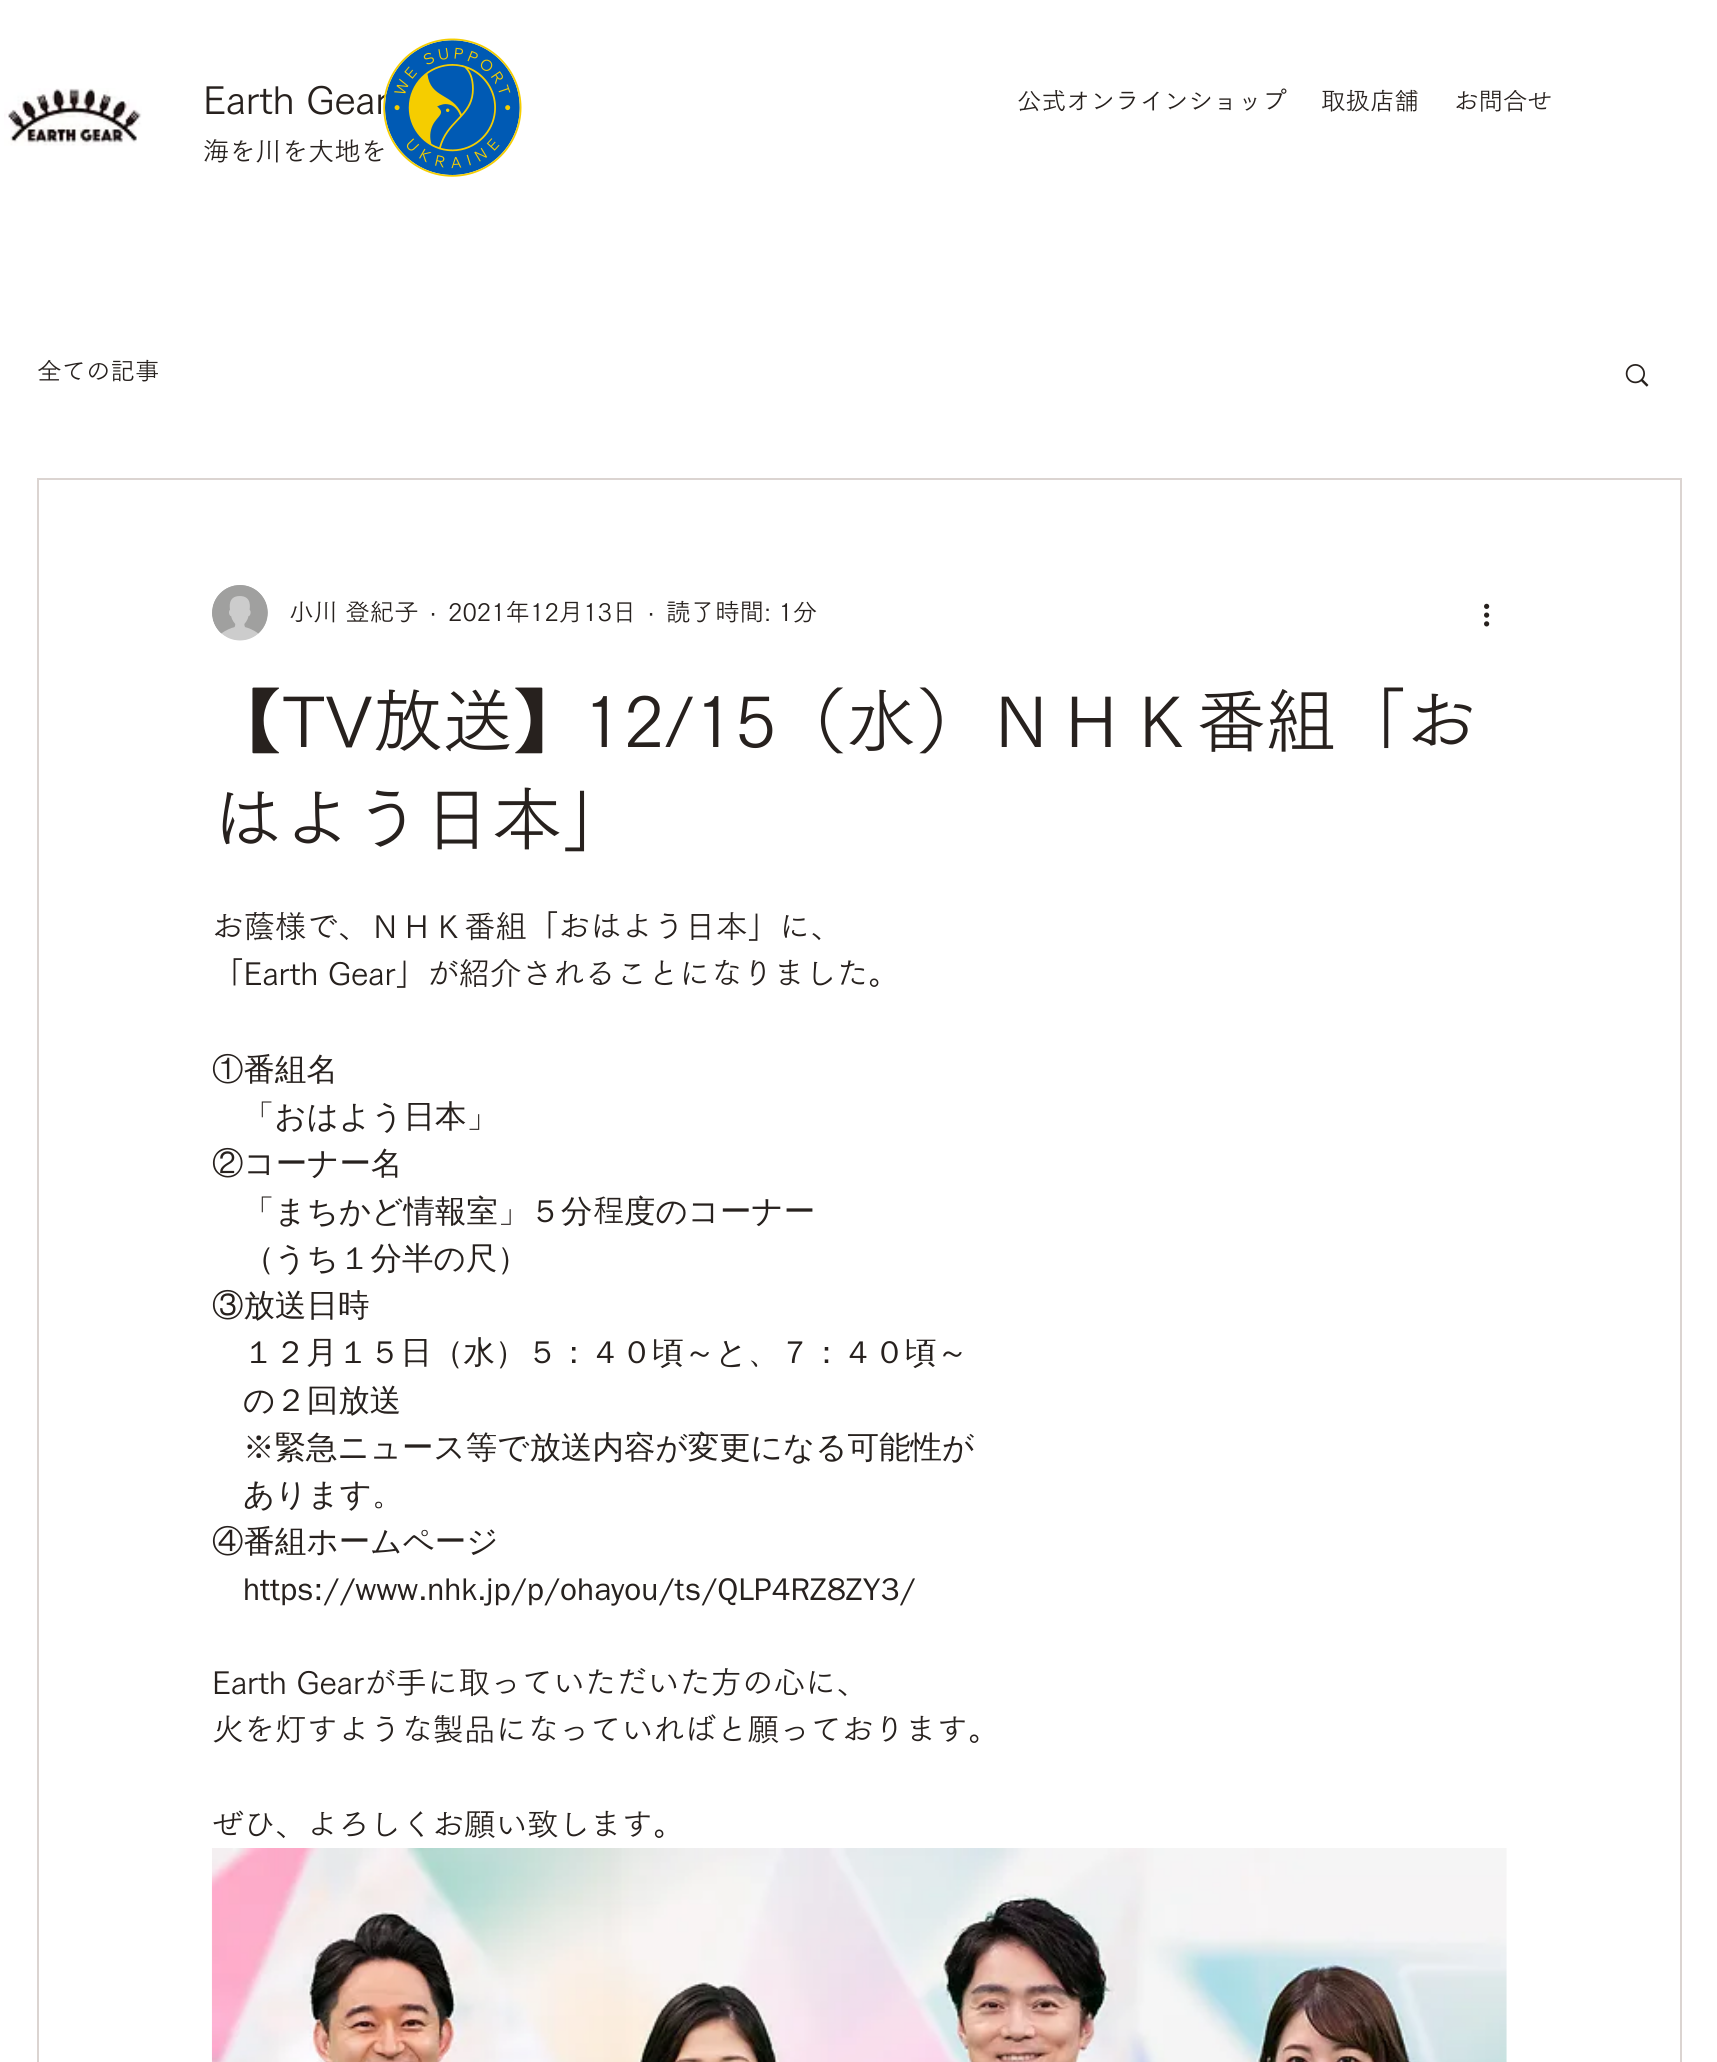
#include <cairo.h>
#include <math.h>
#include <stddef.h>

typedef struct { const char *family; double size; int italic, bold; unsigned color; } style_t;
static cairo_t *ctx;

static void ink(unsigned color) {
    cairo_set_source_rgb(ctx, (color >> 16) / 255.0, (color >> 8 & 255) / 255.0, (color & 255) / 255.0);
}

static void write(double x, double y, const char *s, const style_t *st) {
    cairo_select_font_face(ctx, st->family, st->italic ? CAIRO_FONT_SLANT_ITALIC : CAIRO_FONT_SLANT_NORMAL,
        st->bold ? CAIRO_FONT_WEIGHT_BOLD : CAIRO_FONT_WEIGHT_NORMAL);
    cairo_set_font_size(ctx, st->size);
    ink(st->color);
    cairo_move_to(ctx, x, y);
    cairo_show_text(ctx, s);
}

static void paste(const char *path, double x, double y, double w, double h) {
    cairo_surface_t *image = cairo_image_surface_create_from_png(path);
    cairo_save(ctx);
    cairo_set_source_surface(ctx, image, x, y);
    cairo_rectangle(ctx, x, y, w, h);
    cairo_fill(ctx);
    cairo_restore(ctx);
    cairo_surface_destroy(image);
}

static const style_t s1 = {"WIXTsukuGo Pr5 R", 38.5, 0, 0, 0x27211e};
static const style_t s2 = {"WIXTsukuGo Pr5 R", 26.25, 0, 0, 0x27211e};
static const style_t s3 = {"WIXTsukuGo Pr5 R", 24.5, 0, 0, 0x27211e};
static const style_t s4 = {"Liberation Sans", 24.5, 0, 0, 0x27211e};
static const style_t s5 = {"WIXTsukuGo Pr5 R", 70, 0, 0, 0x27211e};
static const style_t s6 = {"WIXTsukuGo Pr5 R", 31.5, 0, 0, 0x27211e};
static const style_t s7 = {"WenQuanYi Zen Hei Medium", 31.5, 0, 0, 0x27211e};

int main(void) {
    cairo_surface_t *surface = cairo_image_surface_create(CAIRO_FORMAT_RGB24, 1717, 2062);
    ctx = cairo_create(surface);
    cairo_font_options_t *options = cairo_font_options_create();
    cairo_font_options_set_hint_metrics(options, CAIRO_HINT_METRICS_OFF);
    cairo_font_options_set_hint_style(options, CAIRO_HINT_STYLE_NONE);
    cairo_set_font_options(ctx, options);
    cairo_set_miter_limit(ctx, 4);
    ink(0xffffff);
    cairo_paint(ctx);
    write(203, 114, "Earth Gear", &s1);
    write(203, 161, "海を川を大地を", &s2);
    paste("pic1.png", 383, 38, 139, 139);
    paste("pic2.png", 4, 88, 138, 58);
    write(1017, 110, "公式オンラインショップ", &s3);
    write(1321, 110, "取扱店舗", &s3);
    write(1454, 110, "お問合せ", &s3);
    write(37, 380, "全ての記事", &s3);
    paste("pic3.png", 1625, 364, 24, 23);
    cairo_rectangle(ctx, 38, 479, 1643, 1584);
    ink(0xdbd4d1);
    cairo_stroke(ctx);
    paste("pic4.png", 212, 585, 56, 56);
    write(289, 621, "小川 登紀子", &s3);
    write(429, 621, "·", &s4);
    write(448, 621, "2021年12月13日", &s3);
    write(647, 621, "·", &s4);
    write(666, 621, "読了時間: 1分", &s3);
    paste("pic5.png", 1484, 603, 6, 24);
    write(212, 747, "【TV放送】12/15（水）ＮＨＫ番組「お", &s5);
    write(212, 845, "はよう日本」", &s5);
    write(212, 938, "お蔭様で、ＮＨＫ番組「おはよう日本」に、", &s6);
    write(212, 985, "「Earth Gear」が紹介されることになりました。", &s6);
    write(212, 1080, "①番組名", &s7);
    write(243, 1127, "「おはよう日本」", &s7);
    write(212, 1174, "②コーナー名", &s7);
    write(243, 1222, "「まちかど情報室」５分", &s7);
    write(593, 1222, "程", &s6);
    write(624, 1222, "度のコーナー", &s7);
    write(243, 1269, "（うち１分半の尺）", &s7);
    write(212, 1316, "③放送日時", &s7);
    write(243, 1363, "１２月１５日（水）５：４０頃～と、７：４０頃～", &s7);
    write(243, 1411, "の２回放送", &s7);
    write(243, 1458, "※緊急ニュース等で放送内容が変更になる可能性が", &s7);
    write(243, 1505, "あります。", &s7);
    write(212, 1552, "④番組ホームページ", &s7);
    write(243, 1600, "https://www.nhk.jp/p/ohayou/ts/QLP4RZ8ZY3/", &s7);
    write(212, 1694, "Earth Gearが手に取っていただいた方の心に、", &s6);
    write(212, 1741, "火を灯すような製品になっていればと願っております。", &s6);
    write(212, 1836, "ぜひ、よろしくお願い致します。", &s6);
    paste("pic6.png", 211, 1848, 1296, 214);
    cairo_surface_write_to_png(surface, "screenshot.png");
    cairo_font_options_destroy(options);
    cairo_destroy(ctx);
    cairo_surface_destroy(surface);
    return 0;
}
